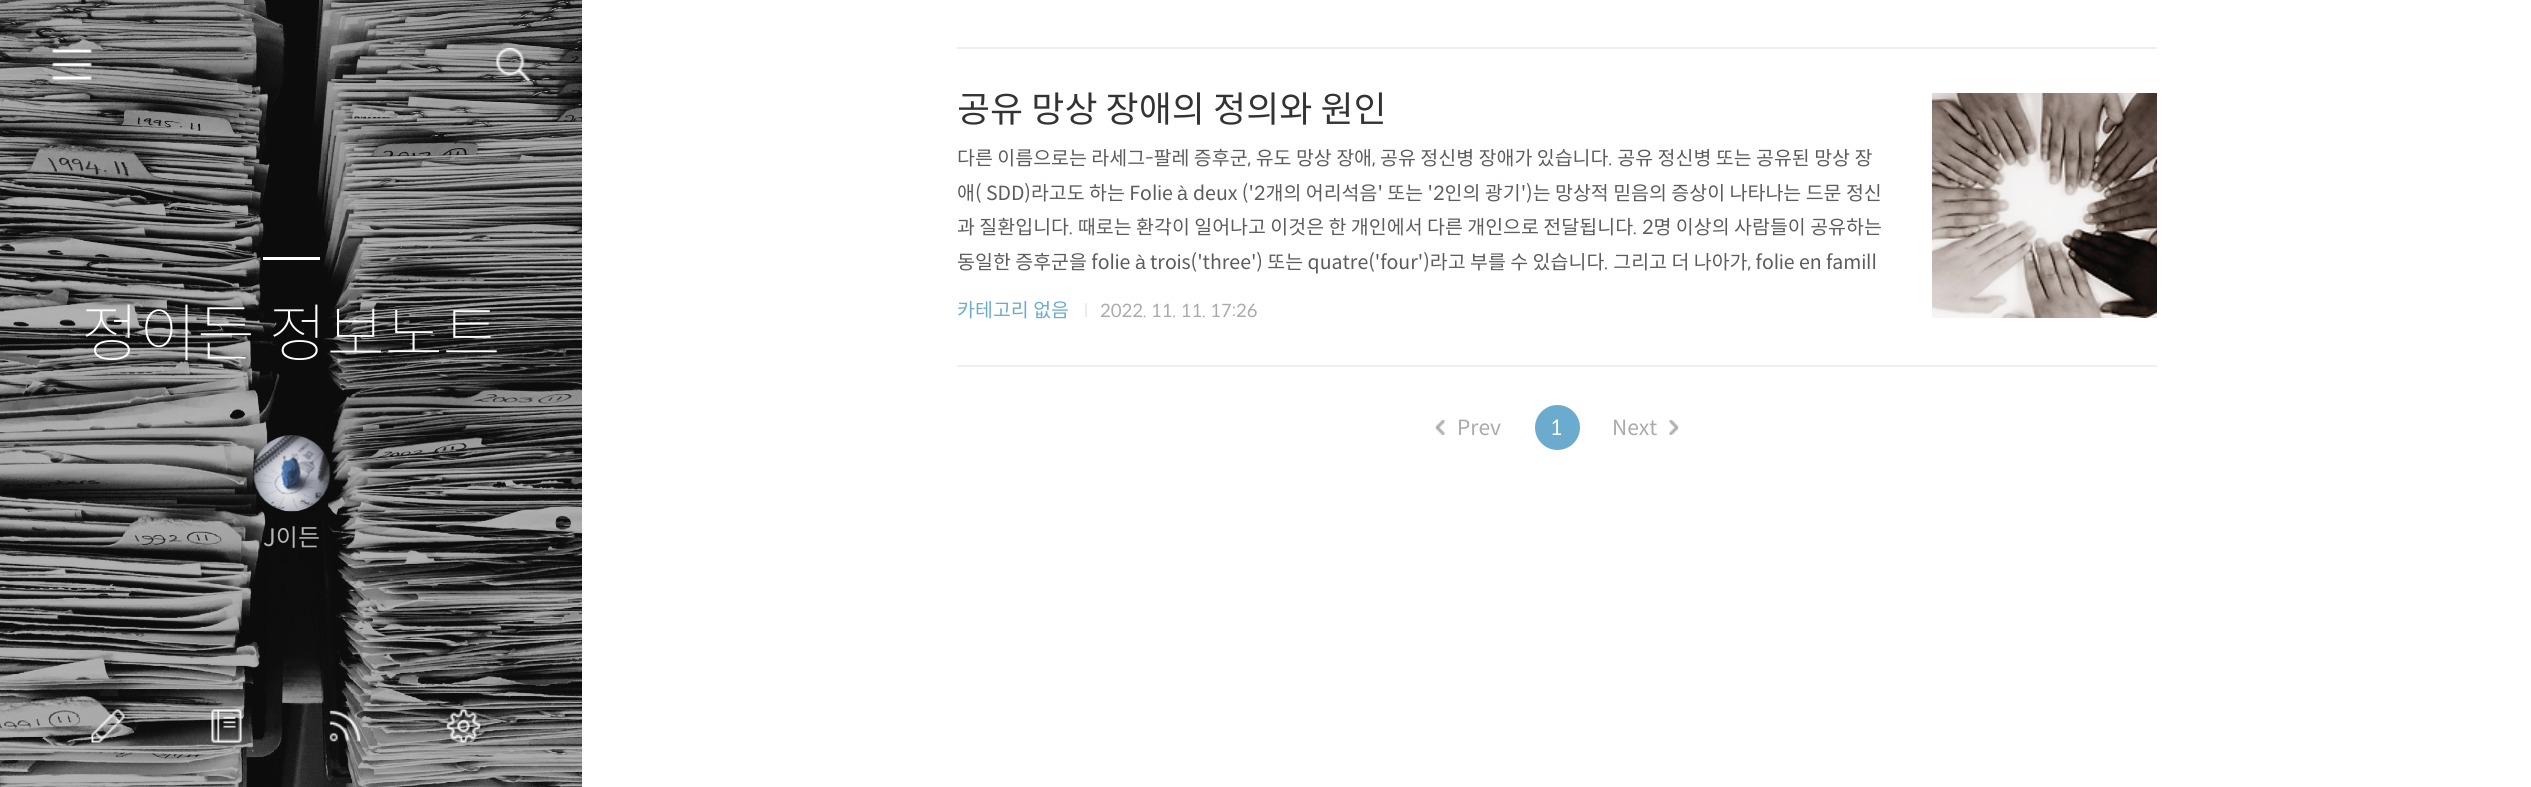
#include <cairo.h>
#include <math.h>
#include <stddef.h>

typedef struct { const char *family; double size; int italic, bold; unsigned color; } style_t;
static cairo_t *ctx;

static void ink(unsigned color) {
    cairo_set_source_rgb(ctx, (color >> 16) / 255.0, (color >> 8 & 255) / 255.0, (color & 255) / 255.0);
}

static void write(double x, double y, const char *s, const style_t *st) {
    cairo_select_font_face(ctx, st->family, st->italic ? CAIRO_FONT_SLANT_ITALIC : CAIRO_FONT_SLANT_NORMAL,
        st->bold ? CAIRO_FONT_WEIGHT_BOLD : CAIRO_FONT_WEIGHT_NORMAL);
    cairo_set_font_size(ctx, st->size);
    ink(st->color);
    cairo_move_to(ctx, x, y);
    cairo_show_text(ctx, s);
}

static void block(double x, double y, double w, double h, unsigned color) {
    ink(color);
    cairo_rectangle(ctx, x, y, w, h);
    cairo_fill(ctx);
}

static void paste(const char *path, double x, double y, double w, double h) {
    cairo_surface_t *image = cairo_image_surface_create_from_png(path);
    cairo_save(ctx);
    cairo_set_source_surface(ctx, image, x, y);
    cairo_rectangle(ctx, x, y, w, h);
    cairo_fill(ctx);
    cairo_restore(ctx);
    cairo_surface_destroy(image);
}

static const style_t s1 = {"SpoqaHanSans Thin", 63, 0, 0, 0xffffff};
static const style_t s2 = {"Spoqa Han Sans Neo", 24, 0, 0, 0xb6b6b6};
static const style_t s3 = {"Spoqa Han Sans Neo", 36, 0, 0, 0x333333};
static const style_t s4 = {"Spoqa Han Sans Neo", 19.5, 0, 0, 0x5c5c5c};
static const style_t s5 = {"Liberation Sans", 19.5, 0, 0, 0x5c5c5c};
static const style_t s6 = {"Spoqa Han Sans Neo", 19.5, 0, 0, 0x6bacce};
static const style_t s7 = {"Spoqa Han Sans Neo", 18, 0, 0, 0xaaaaaa};
static const style_t s8 = {"Spoqa Han Sans Neo", 21, 0, 0, 0xaaaaaa};
static const style_t s9 = {"Spoqa Han Sans Neo", 21, 0, 0, 0xffffff};

int main(void) {
    cairo_surface_t *surface = cairo_image_surface_create(CAIRO_FORMAT_RGB24, 2531, 787);
    ctx = cairo_create(surface);
    cairo_font_options_t *options = cairo_font_options_create();
    cairo_font_options_set_hint_metrics(options, CAIRO_HINT_METRICS_OFF);
    cairo_font_options_set_hint_style(options, CAIRO_HINT_STYLE_NONE);
    cairo_set_font_options(ctx, options);
    cairo_set_miter_limit(ctx, 4);
    ink(0xffffff);
    cairo_paint(ctx);
    paste("pic4.png", 0, 0, 582, 787);
    paste("pic1.png", 52, 49, 40, 31);
    paste("pic2.png", 496, 48, 35, 34);
    block(263, 257, 57, 3, 0xffffff);
    write(81, 356, "정이든 정보노트", &s1);
    paste("pic3.png", 253, 435, 78, 77);
    write(263, 546, "J이든", &s2);
    paste("pic5.png", 91, 709, 34, 34);
    paste("pic6.png", 211, 709, 31, 34);
    paste("pic7.png", 329, 710, 32, 32);
    paste("pic8.png", 446, 709, 35, 34);
    block(957, 47, 1200, 2, 0xefefef);
    block(957, 365, 1200, 2, 0xefefef);
    write(957, 122, "공유 망상 장애의 정의와 원인", &s3);
    write(957, 165, "다른 이름으로는 라세그-팔레 증후군, 유도 망상 장애, 공유 정신병 장애가 있습니다. 공유 정신병 또는 공유된 망상 장", &s4);
    write(957, 200, "애( SDD)라고도 하는 Folie", &s4);
    write(1177, 200, "à", &s5);
    write(1193, 200, "deux ('2개의 어리석음' 또는 '2인의 광기')는 망상적 믿음의 증상이 나타나는 드문 정신", &s4);
    write(957, 234, "과 질환입니다. 때로는 환각이 일어나고 이것은 한 개인에서 다른 개인으로 전달됩니다. 2명 이상의 사람들이 공유하는", &s4);
    write(957, 269, "동일한 증후군을 folie", &s4);
    write(1135, 269, "à", &s5);
    write(1150, 269, "trois('three') 또는 quatre('four')라고 부를 수 있습니다. 그리고 더 나아가, folie en famill", &s4);
    paste("pic9.png", 1932, 93, 225, 225);
    write(957, 317, "카테고리 없음", &s6);
    block(1085, 303, 2, 14, 0xebebeb);
    write(1100, 317, "2022. 11. 11. 17:26", &s7);
    paste("pic10.png", 1435, 420, 10, 15);
    write(1457, 435, "Prev", &s8);
    ink(0x6bacce);
    cairo_new_path(ctx);
    cairo_arc(ctx, 1557.5, 427.5, 22.5, 0, 2 * M_PI);
    cairo_fill(ctx);
    write(1550, 435, "1", &s9);
    write(1612, 435, "Next", &s8);
    paste("pic11.png", 1669, 420, 10, 15);
    cairo_surface_write_to_png(surface, "screenshot.png");
    cairo_font_options_destroy(options);
    cairo_destroy(ctx);
    cairo_surface_destroy(surface);
    return 0;
}
